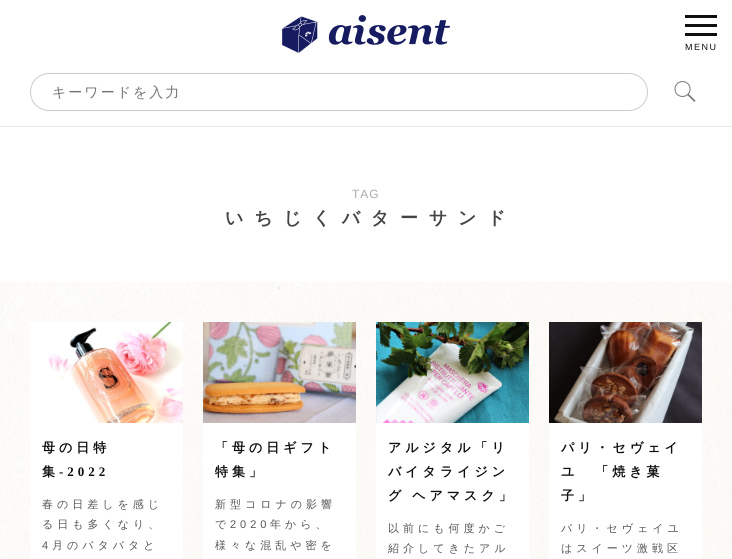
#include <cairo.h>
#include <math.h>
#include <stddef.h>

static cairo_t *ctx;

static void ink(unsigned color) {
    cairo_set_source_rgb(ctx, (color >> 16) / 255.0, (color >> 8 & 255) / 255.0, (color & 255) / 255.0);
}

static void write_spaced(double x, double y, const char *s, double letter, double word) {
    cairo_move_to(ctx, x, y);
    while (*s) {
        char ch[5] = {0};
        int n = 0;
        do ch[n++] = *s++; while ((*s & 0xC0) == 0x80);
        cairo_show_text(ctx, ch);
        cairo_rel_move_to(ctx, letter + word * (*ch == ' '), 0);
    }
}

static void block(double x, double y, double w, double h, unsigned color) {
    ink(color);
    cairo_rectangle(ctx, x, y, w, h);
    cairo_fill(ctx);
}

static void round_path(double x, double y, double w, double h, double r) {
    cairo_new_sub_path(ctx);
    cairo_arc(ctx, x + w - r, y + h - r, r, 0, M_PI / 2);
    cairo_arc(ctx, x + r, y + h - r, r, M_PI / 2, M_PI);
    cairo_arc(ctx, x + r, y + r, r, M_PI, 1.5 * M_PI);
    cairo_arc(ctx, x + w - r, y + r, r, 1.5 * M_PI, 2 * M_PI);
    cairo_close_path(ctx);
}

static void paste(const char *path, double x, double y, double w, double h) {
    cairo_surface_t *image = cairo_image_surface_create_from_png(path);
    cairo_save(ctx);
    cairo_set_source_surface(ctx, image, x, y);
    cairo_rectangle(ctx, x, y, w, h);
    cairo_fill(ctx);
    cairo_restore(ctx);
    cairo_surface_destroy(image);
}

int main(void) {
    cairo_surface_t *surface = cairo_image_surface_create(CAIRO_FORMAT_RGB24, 732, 559);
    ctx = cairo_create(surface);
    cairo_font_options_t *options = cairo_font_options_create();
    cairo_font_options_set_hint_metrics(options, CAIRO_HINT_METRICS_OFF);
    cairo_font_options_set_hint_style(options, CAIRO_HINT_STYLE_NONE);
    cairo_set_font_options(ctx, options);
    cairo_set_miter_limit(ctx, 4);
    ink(0xffffff);
    cairo_paint(ctx);
    block(0, 126, 732, 1, 0xeaeaea);
    block(685, 15, 32, 3, 0x100f10);
    block(685, 24, 32, 3, 0x100f10);
    block(685, 33, 32, 3, 0x100f10);
    cairo_select_font_face(ctx, "Liberation Sans", CAIRO_FONT_SLANT_NORMAL, CAIRO_FONT_WEIGHT_NORMAL);
    cairo_set_font_size(ctx, 9);
    write_spaced(685, 50, "MENU", 1.5, 0);
    paste("pic1.png", 282, 15, 168, 38);
    round_path(30.5, 73.5, 617, 37, 18.5);
    ink(0xcccccc);
    cairo_set_line_width(ctx, 1);
    cairo_stroke(ctx);
    cairo_select_font_face(ctx, "WenQuanYi Zen Hei Medium", CAIRO_FONT_SLANT_NORMAL, CAIRO_FONT_WEIGHT_NORMAL);
    cairo_set_font_size(ctx, 14);
    ink(0x757575);
    write_spaced(52, 97, "キーワードを入力", 2, 0);
    paste("pic2.png", 674, 81, 22, 21);
    cairo_select_font_face(ctx, "Liberation Sans", CAIRO_FONT_SLANT_NORMAL, CAIRO_FONT_WEIGHT_NORMAL);
    cairo_set_font_size(ctx, 12);
    ink(0xaaaaaa);
    write_spaced(352, 198, "TAG", 1, 0);
    cairo_select_font_face(ctx, "WenQuanYi Zen Hei", CAIRO_FONT_SLANT_NORMAL, CAIRO_FONT_WEIGHT_BOLD);
    cairo_set_font_size(ctx, 18);
    ink(0x444444);
    write_spaced(225, 224, "いちじくバターサンド", 10.75, 0);
    paste("pic3.png", 0, 282, 732, 277);
    block(30, 322, 153, 237, 0xffffff);
    paste("pic4.png", 48, 322, 135, 101);
    cairo_set_font_size(ctx, 13);
    ink(0x100f10);
    write_spaced(42, 452, "母の日特", 4, 0);
    write_spaced(42, 476, "集", 4, 0);
    cairo_select_font_face(ctx, "Liberation Serif", CAIRO_FONT_SLANT_NORMAL, CAIRO_FONT_WEIGHT_BOLD);
    write_spaced(59, 476, "-2022", 4, 0);
    cairo_select_font_face(ctx, "WenQuanYi Zen Hei Medium", CAIRO_FONT_SLANT_NORMAL, CAIRO_FONT_WEIGHT_NORMAL);
    cairo_set_font_size(ctx, 11);
    ink(0x555555);
    write_spaced(42, 508, "春の日差しを感じ", 4, 0);
    write_spaced(42, 528, "る日も多くなり、", 4, 0);
    cairo_select_font_face(ctx, "Liberation Sans", CAIRO_FONT_SLANT_NORMAL, CAIRO_FONT_WEIGHT_NORMAL);
    write_spaced(42, 549, "4", 4, 0);
    cairo_select_font_face(ctx, "WenQuanYi Zen Hei Medium", CAIRO_FONT_SLANT_NORMAL, CAIRO_FONT_WEIGHT_NORMAL);
    write_spaced(52, 549, "月のバタバタと", 4, 0);
    block(203, 423, 153, 136, 0xffffff);
    paste("pic5.png", 203, 322, 153, 101);
    cairo_select_font_face(ctx, "WenQuanYi Zen Hei", CAIRO_FONT_SLANT_NORMAL, CAIRO_FONT_WEIGHT_BOLD);
    cairo_set_font_size(ctx, 13);
    ink(0x100f10);
    write_spaced(215, 452, "「母の日ギフト", 4, 0);
    write_spaced(215, 476, "特集」", 4, 0);
    cairo_select_font_face(ctx, "WenQuanYi Zen Hei Medium", CAIRO_FONT_SLANT_NORMAL, CAIRO_FONT_WEIGHT_NORMAL);
    cairo_set_font_size(ctx, 11);
    ink(0x555555);
    write_spaced(215, 508, "新型コロナの影響", 4, 0);
    write_spaced(215, 528, "で", 4, 0);
    cairo_select_font_face(ctx, "Liberation Sans", CAIRO_FONT_SLANT_NORMAL, CAIRO_FONT_WEIGHT_NORMAL);
    write_spaced(230, 528, "2020", 4, 0);
    cairo_select_font_face(ctx, "WenQuanYi Zen Hei Medium", CAIRO_FONT_SLANT_NORMAL, CAIRO_FONT_WEIGHT_NORMAL);
    write_spaced(270, 528, "年から、", 4, 0);
    write_spaced(215, 549, "様々な混乱や密を", 4, 0);
    block(376, 423, 153, 136, 0xffffff);
    paste("pic6.png", 376, 322, 153, 101);
    cairo_select_font_face(ctx, "WenQuanYi Zen Hei", CAIRO_FONT_SLANT_NORMAL, CAIRO_FONT_WEIGHT_BOLD);
    cairo_set_font_size(ctx, 13);
    ink(0x100f10);
    write_spaced(388, 452, "アルジタル「リ", 4, 0);
    write_spaced(388, 476, "バイタライジン", 4, 0);
    write_spaced(388, 500, "グ ヘアマスク」", 4, -1);
    cairo_select_font_face(ctx, "WenQuanYi Zen Hei Medium", CAIRO_FONT_SLANT_NORMAL, CAIRO_FONT_WEIGHT_NORMAL);
    cairo_set_font_size(ctx, 11);
    ink(0x555555);
    write_spaced(388, 532, "以前にも何度かご", 4, 0);
    write_spaced(388, 552, "紹介してきたアル", 4, 0);
    block(549, 423, 153, 136, 0xffffff);
    paste("pic7.png", 549, 322, 153, 101);
    cairo_select_font_face(ctx, "WenQuanYi Zen Hei", CAIRO_FONT_SLANT_NORMAL, CAIRO_FONT_WEIGHT_BOLD);
    cairo_set_font_size(ctx, 13);
    ink(0x100f10);
    write_spaced(561, 452, "パリ・セヴェイ", 4, 0);
    write_spaced(561, 476, "ユ　「焼き菓", 4, 0);
    write_spaced(561, 500, "子」", 4, 0);
    cairo_select_font_face(ctx, "WenQuanYi Zen Hei Medium", CAIRO_FONT_SLANT_NORMAL, CAIRO_FONT_WEIGHT_NORMAL);
    cairo_set_font_size(ctx, 11);
    ink(0x555555);
    write_spaced(561, 532, "パリ・セヴェイユ", 4, 0);
    write_spaced(561, 552, "はスイーツ激戦区", 4, 0);
    cairo_surface_write_to_png(surface, "screenshot.png");
    cairo_font_options_destroy(options);
    cairo_destroy(ctx);
    cairo_surface_destroy(surface);
    return 0;
}
